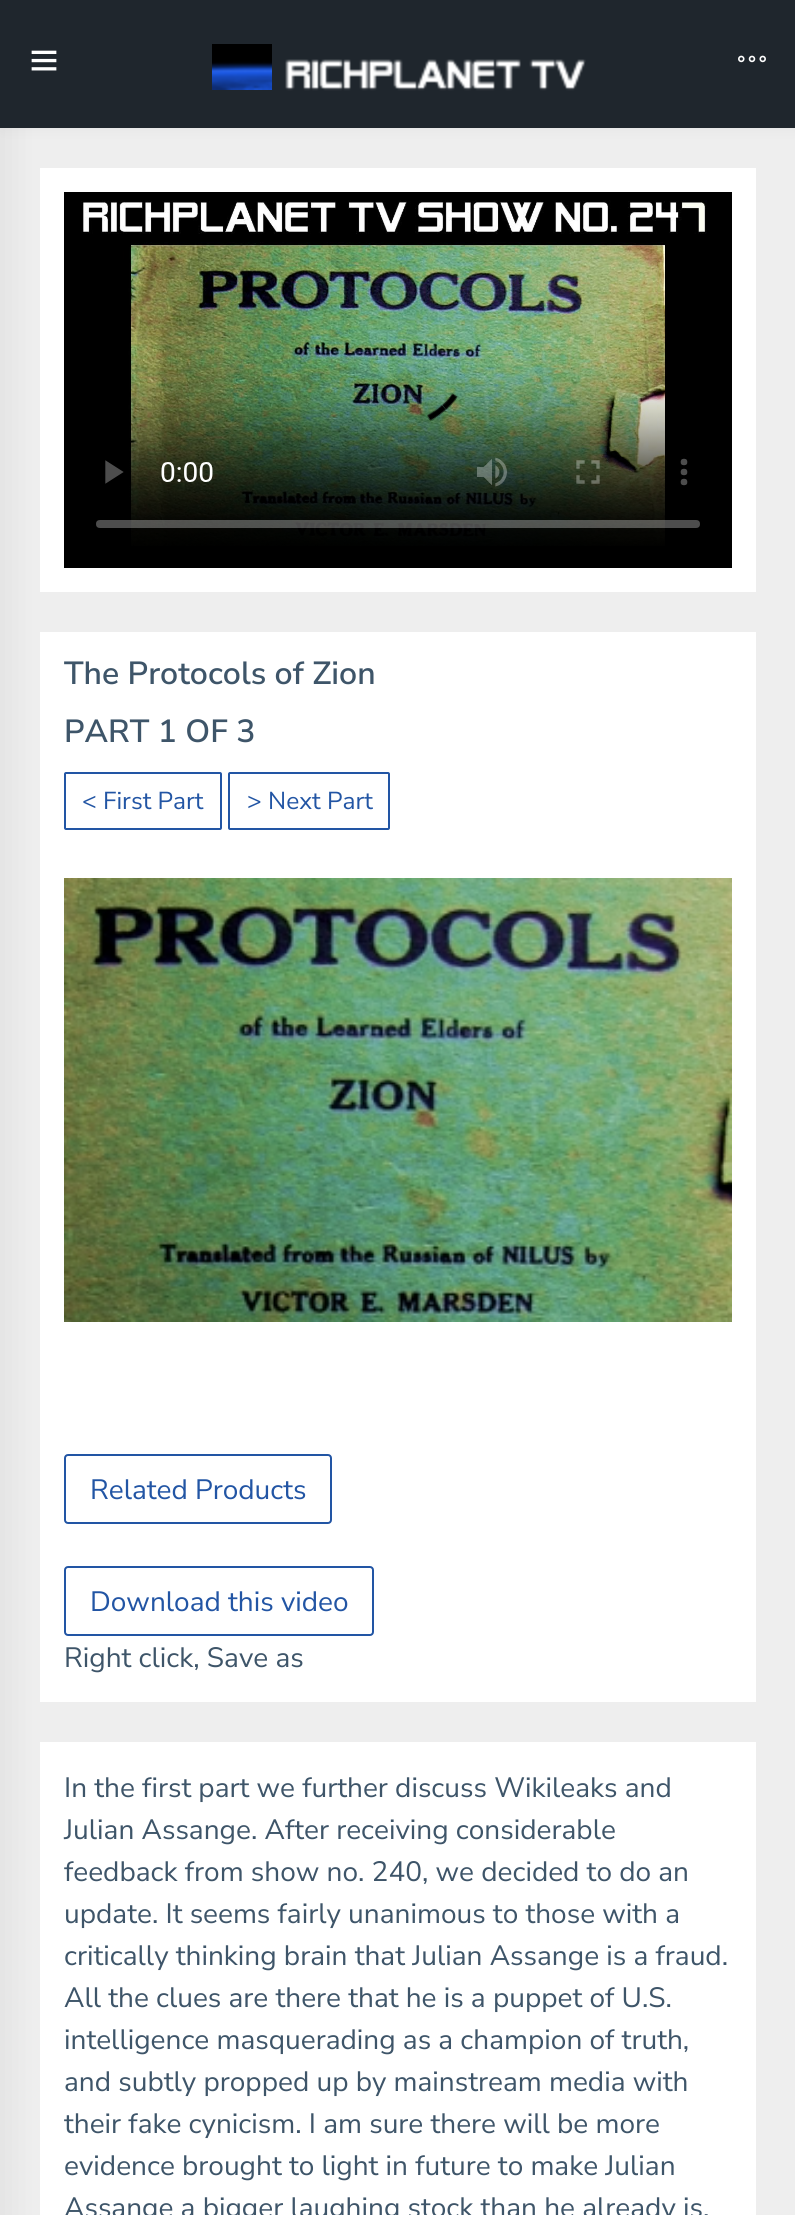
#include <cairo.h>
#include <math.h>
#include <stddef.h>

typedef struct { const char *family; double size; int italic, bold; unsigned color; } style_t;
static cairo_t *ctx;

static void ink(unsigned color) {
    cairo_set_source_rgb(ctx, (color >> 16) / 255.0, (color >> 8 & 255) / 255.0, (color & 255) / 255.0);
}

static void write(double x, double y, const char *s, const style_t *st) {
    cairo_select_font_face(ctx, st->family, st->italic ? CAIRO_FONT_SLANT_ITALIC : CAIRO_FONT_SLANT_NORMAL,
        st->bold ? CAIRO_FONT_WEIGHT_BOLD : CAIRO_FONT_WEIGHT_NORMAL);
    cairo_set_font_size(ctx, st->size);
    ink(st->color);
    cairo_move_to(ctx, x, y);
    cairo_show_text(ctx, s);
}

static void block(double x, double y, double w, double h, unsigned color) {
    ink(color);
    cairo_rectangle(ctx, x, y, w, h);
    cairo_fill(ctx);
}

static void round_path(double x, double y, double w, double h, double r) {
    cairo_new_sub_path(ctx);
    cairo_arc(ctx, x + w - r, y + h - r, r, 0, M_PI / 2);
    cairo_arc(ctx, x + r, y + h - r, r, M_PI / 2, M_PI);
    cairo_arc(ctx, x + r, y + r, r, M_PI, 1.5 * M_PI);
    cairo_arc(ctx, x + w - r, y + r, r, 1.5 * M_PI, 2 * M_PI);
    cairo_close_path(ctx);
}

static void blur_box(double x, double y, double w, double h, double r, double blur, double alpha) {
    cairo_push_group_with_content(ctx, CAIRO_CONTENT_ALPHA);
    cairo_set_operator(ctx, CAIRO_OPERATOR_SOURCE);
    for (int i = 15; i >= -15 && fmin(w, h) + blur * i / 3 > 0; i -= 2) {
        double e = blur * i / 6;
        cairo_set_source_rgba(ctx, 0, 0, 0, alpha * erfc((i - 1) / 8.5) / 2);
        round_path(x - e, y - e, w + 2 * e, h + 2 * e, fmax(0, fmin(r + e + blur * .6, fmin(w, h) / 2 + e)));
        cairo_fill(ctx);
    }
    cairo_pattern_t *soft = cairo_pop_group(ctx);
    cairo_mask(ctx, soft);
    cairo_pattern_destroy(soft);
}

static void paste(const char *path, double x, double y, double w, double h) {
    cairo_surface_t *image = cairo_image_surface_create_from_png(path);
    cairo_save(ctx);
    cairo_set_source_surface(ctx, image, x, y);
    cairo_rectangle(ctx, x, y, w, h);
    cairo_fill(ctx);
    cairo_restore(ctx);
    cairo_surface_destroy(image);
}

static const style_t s1 = {"Nunito Sans SemiBold", 32, 0, 0, 0x3e5569};
static const style_t s2 = {"Nunito Sans", 24.5, 0, 0, 0x2255a4};
static const style_t s3 = {"Nunito Sans", 28, 0, 0, 0x2255a4};
static const style_t s4 = {"Nunito Sans", 28, 0, 0, 0x3e5569};

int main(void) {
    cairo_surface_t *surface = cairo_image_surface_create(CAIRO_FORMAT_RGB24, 795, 2215);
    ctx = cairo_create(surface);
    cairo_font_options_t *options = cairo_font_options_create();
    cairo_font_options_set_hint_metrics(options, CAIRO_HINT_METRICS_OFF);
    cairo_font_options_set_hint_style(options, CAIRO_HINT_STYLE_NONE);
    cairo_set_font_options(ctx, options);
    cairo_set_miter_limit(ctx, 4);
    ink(0xeeeeee);
    cairo_paint(ctx);
    block(40, 168, 716, 424, 0xffffff);
    block(40, 632, 716, 1070, 0xffffff);
    block(40, 1742, 716, 473, 0xffffff);
    ink(0x000000);
    blur_box(-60, 0, 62, 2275, 0, 20, 0.08);
    blur_box(2, 0, 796, 128, 0, 7, 0.05);
    block(0, 0, 795, 128, 0x1f262d);
    paste("pic1.png", 31, 50, 26, 21);
    paste("pic2.png", 212, 44, 60, 46);
    paste("pic3.png", 285, 59, 301, 32);
    paste("pic4.png", 738, 55, 28, 8);
    paste("pic5.png", 64, 192, 668, 376);
    write(64, 684, "The Protocols of Zion", &s1);
    write(64, 742, "PART 1 OF 3", &s1);
    round_path(65, 773, 156, 56, 1);
    ink(0x2255a4);
    cairo_stroke(ctx);
    write(82, 809, "< First Part", &s2);
    round_path(229, 773, 160, 56, 1);
    cairo_stroke(ctx);
    write(247, 809, "> Next Part", &s2);
    paste("pic6.png", 64, 878, 668, 444);
    round_path(65, 1455, 266, 68, 3);
    cairo_stroke(ctx);
    write(90, 1499, "Related Products", &s3);
    round_path(65, 1567, 308, 68, 3);
    cairo_stroke(ctx);
    write(90, 1611, "Download this video", &s3);
    write(64, 1667, "Right click, Save as", &s4);
    write(64, 1797, "In the first part we further discuss Wikileaks and", &s4);
    write(64, 1839, "Julian Assange. After receiving considerable", &s4);
    write(64, 1881, "feedback from show no. 240, we decided to do an", &s4);
    write(64, 1923, "update. It seems fairly unanimous to those with a", &s4);
    write(64, 1965, "critically thinking brain that Julian Assange is a fraud.", &s4);
    write(64, 2007, "All the clues are there that he is a puppet of U.S.", &s4);
    write(64, 2049, "intelligence masquerading as a champion of truth,", &s4);
    write(64, 2091, "and subtly propped up by mainstream media with", &s4);
    write(64, 2133, "their fake cynicism. I am sure there will be more", &s4);
    write(64, 2175, "evidence brought to light in future to make Julian", &s4);
    write(64, 2217, "Assange a bigger laughing stock than he already is.", &s4);
    cairo_surface_write_to_png(surface, "screenshot.png");
    cairo_font_options_destroy(options);
    cairo_destroy(ctx);
    cairo_surface_destroy(surface);
    return 0;
}
